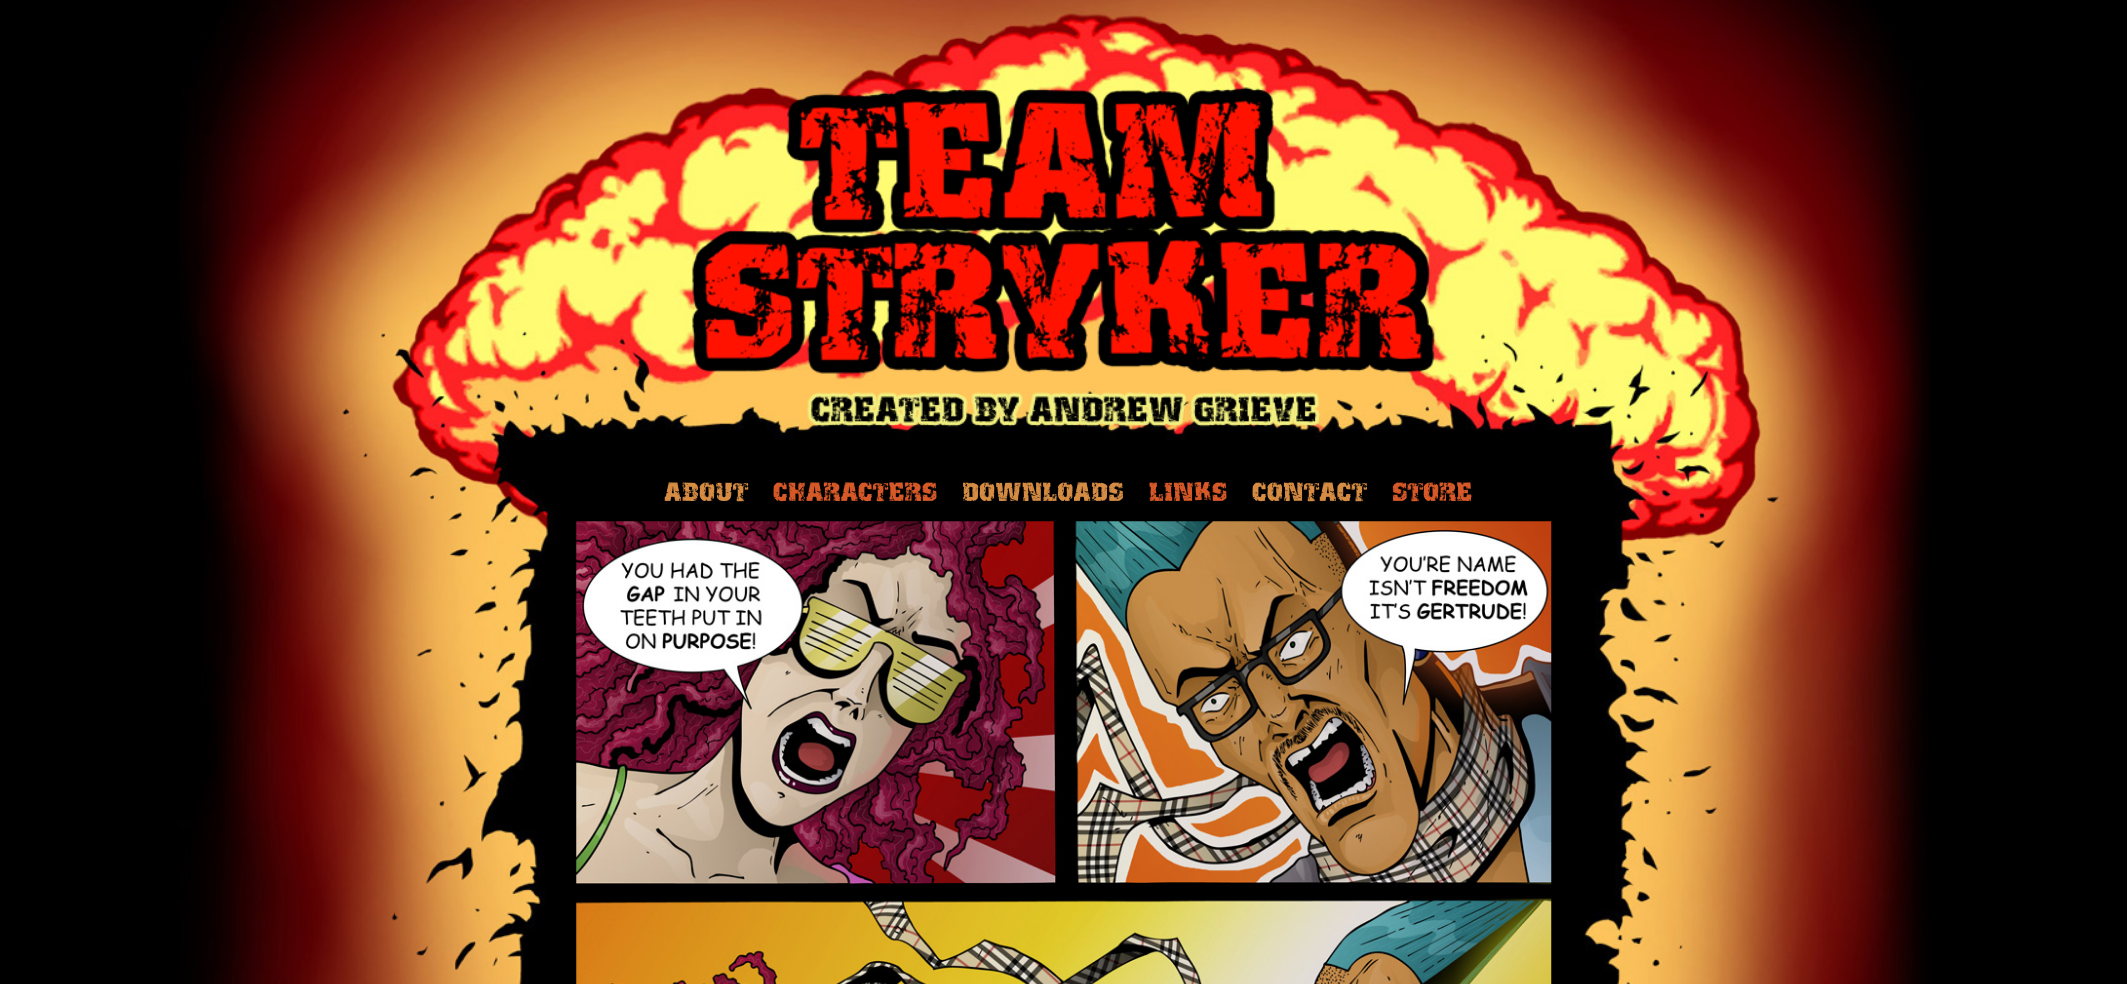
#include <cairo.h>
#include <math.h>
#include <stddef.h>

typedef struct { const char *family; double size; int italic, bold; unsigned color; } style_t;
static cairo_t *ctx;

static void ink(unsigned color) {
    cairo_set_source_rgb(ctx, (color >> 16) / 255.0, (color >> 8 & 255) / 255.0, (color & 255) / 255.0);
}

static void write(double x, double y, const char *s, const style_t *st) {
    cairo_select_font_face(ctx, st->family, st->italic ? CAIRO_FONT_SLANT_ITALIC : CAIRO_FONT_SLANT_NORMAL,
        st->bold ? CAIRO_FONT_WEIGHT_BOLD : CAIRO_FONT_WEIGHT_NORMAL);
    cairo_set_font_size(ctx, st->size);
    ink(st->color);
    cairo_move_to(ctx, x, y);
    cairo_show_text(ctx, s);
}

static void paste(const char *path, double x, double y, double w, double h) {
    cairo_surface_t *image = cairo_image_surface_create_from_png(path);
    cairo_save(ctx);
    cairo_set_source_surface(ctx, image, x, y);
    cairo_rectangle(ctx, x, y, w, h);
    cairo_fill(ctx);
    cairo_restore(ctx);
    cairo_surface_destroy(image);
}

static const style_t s1 = {"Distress", 22.5, 0, 0, 0xd68c43};
static const style_t s2 = {"Distress", 22.5, 0, 0, 0xd75927};

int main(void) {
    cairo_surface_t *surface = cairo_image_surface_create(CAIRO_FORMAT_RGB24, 2127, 984);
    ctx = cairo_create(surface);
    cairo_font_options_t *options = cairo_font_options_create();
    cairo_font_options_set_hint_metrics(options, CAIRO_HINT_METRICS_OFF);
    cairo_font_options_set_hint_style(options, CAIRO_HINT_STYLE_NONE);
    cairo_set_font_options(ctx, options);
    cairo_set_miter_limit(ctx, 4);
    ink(0x000000);
    cairo_paint(ctx);
    paste("pic1.png", 179, 0, 1752, 984);
    paste("pic2.png", 692, 87, 743, 287);
    paste("pic3.png", 807, 392, 513, 35);
    write(664, 501, "ABOUT", &s1);
    write(773, 501, "CHARACTERS", &s2);
    write(962, 501, "DOWNLOADS", &s1);
    write(1149, 501, "LINKS", &s2);
    write(1252, 501, "CONTACT", &s1);
    write(1392, 501, "STORE", &s2);
    paste("pic4.png", 576, 521, 976, 463);
    cairo_surface_write_to_png(surface, "screenshot.png");
    cairo_font_options_destroy(options);
    cairo_destroy(ctx);
    cairo_surface_destroy(surface);
    return 0;
}
